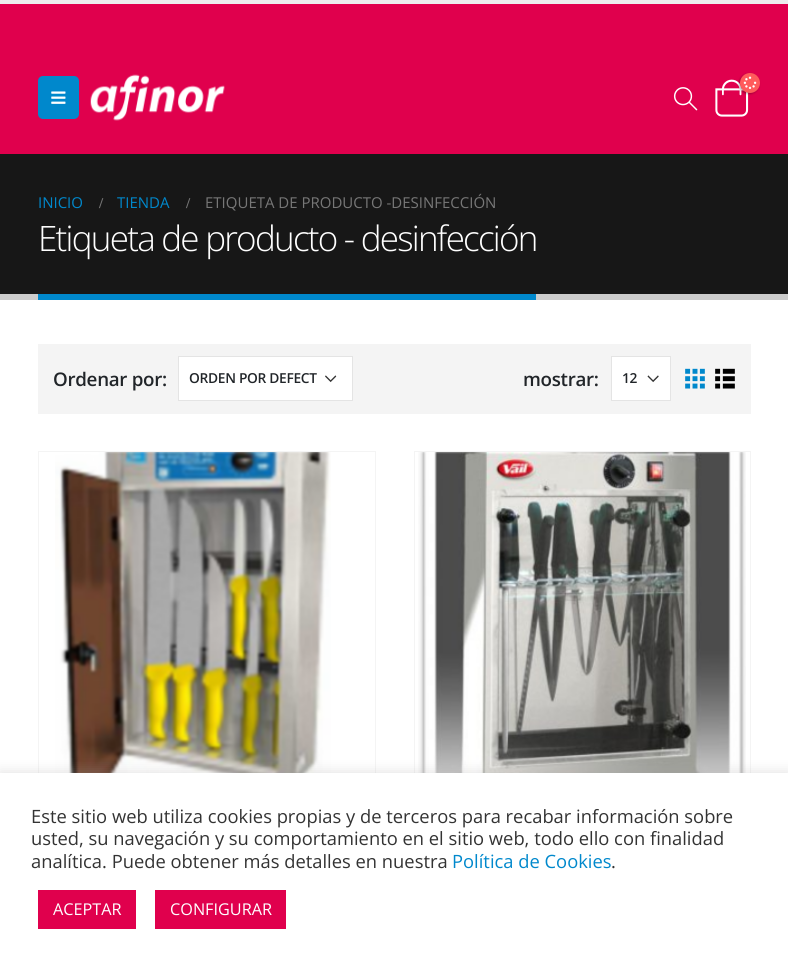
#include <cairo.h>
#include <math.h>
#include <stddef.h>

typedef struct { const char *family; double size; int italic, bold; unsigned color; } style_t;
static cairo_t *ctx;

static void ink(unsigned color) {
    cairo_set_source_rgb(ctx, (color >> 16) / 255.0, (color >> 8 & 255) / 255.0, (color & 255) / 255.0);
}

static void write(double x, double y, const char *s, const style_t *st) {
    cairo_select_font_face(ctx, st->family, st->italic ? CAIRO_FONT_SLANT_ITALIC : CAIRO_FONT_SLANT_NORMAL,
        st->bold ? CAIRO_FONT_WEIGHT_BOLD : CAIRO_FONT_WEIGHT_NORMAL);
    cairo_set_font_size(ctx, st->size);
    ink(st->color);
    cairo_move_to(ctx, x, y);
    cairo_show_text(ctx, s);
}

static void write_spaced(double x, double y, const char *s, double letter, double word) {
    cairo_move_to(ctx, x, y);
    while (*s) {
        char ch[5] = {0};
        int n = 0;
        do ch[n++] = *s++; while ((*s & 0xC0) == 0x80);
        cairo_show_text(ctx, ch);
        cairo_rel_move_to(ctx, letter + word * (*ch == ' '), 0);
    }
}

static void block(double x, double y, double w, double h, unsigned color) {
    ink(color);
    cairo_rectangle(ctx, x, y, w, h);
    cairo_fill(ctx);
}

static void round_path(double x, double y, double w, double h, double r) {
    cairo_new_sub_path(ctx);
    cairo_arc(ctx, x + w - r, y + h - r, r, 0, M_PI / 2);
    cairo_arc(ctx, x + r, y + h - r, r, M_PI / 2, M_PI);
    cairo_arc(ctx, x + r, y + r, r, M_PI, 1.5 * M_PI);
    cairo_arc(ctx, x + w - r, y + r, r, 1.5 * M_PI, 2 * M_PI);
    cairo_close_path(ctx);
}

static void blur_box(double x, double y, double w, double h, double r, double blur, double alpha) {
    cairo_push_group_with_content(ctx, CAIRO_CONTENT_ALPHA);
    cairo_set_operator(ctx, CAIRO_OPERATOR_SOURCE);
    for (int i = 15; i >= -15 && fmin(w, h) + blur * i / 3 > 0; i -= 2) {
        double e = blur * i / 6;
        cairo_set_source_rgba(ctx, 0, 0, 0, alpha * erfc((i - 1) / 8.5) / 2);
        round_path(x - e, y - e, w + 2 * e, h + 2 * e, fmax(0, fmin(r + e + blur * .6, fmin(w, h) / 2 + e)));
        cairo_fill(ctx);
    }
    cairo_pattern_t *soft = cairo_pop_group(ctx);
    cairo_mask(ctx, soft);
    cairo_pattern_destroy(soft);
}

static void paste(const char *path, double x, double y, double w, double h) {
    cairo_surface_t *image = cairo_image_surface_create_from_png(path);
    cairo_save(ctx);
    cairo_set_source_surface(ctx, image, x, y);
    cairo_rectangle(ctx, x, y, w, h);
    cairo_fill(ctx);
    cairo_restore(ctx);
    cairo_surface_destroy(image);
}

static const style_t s1 = {"Open Sans", 15, 0, 0, 0x0088cc};
static const style_t s2 = {"Liberation Serif", 15, 0, 1, 0x777777};
static const style_t s3 = {"Open Sans", 15, 0, 0, 0x777777};
static const style_t s4 = {"Open Sans", 18.35, 0, 0, 0x333333};
static const style_t s5 = {"Open Sans", 18.35, 0, 0, 0x0088cc};
static const style_t s6 = {"Open Sans", 16.25, 0, 0, 0xffffff};

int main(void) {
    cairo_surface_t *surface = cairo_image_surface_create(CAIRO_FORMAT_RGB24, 788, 966);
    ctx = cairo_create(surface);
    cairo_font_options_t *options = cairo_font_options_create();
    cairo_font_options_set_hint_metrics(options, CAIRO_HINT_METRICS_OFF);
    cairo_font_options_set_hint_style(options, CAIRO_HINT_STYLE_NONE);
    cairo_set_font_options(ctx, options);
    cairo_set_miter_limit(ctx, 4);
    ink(0xffffff);
    cairo_paint(ctx);
    block(0, 4, 788, 150, 0xe0004d);
    block(0, 0, 788, 4, 0xededed);
    ink(0x0088cc);
    round_path(38, 76, 41, 43, 5);
    cairo_fill(ctx);
    paste("pic1.png", 51, 91, 15, 13);
    paste("pic2.png", 90, 74, 135, 47);
    paste("pic3.png", 673, 87, 25, 24);
    paste("pic5.png", 715, 79, 34, 38);
    ink(0x000000);
    blur_box(739, 74, 20, 20, 10, 1, 0.3);
    ink(0xff5b5b);
    cairo_arc(ctx, 750, 83, 10, 0, 2 * M_PI);
    cairo_fill(ctx);
    paste("pic4.png", 743, 76, 14, 13);
    block(0, 154, 788, 140, 0x171717);
    block(0, 294, 788, 6, 0xcccccc);
    write(38, 208, "INICIO", &s1);
    write(99, 208, "/", &s2);
    write(117, 208, "TIENDA", &s1);
    write(186, 208, "/", &s2);
    write(205, 208, "ETIQUETA DE PRODUCTO -DESINFECCIÓN", &s3);
    cairo_select_font_face(ctx, "Open Sans Light", CAIRO_FONT_SLANT_NORMAL, CAIRO_FONT_WEIGHT_NORMAL);
    cairo_set_font_size(ctx, 35);
    ink(0xffffff);
    write_spaced(38, 251, "Etiqueta de producto - desinfección", -1.75, 0);
    block(38, 294, 498, 6, 0x0088cc);
    block(38, 344, 713, 70, 0xf4f4f4);
    cairo_select_font_face(ctx, "Open Sans SemiBold", CAIRO_FONT_SLANT_NORMAL, CAIRO_FONT_WEIGHT_NORMAL);
    cairo_set_font_size(ctx, 18.75);
    ink(0x212529);
    write_spaced(53, 386, "Ordenar por:", -0.3, 0);
    block(179, 357, 173, 43, 0xffffff);
    paste("pic6.png", 325, 375, 12, 8);
    cairo_rectangle(ctx, 178.5, 356.5, 174, 44);
    ink(0xe4e4e4);
    cairo_set_line_width(ctx, 1);
    cairo_stroke(ctx);
    cairo_set_font_size(ctx, 13.75);
    ink(0x212529);
    write_spaced(189, 383, "ORDEN POR DEFECT", -0.3, 0);
    cairo_set_font_size(ctx, 18.75);
    write_spaced(523, 386, "mostrar:", -0.3, 0);
    block(612, 357, 58, 43, 0xffffff);
    paste("pic7.png", 647, 375, 12, 8);
    cairo_rectangle(ctx, 611.5, 356.5, 59, 44);
    ink(0xe4e4e4);
    cairo_stroke(ctx);
    cairo_set_font_size(ctx, 13.75);
    ink(0x212529);
    write_spaced(622, 383, "12", -0.3, 0);
    paste("pic8.png", 685, 368, 20, 21);
    paste("pic9.png", 715, 368, 20, 21);
    cairo_rectangle(ctx, 38.5, 451.5, 337, 337);
    ink(0xf4f4f4);
    cairo_stroke(ctx);
    paste("pic10.png", 55, 452, 276, 321);
    cairo_rectangle(ctx, 414.5, 451.5, 336, 337);
    cairo_stroke(ctx);
    paste("pic11.png", 418, 452, 328, 321);
    ink(0xacabab);
    blur_box(0, 771, 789, 194, 0, 6, 0.3);
    block(0, 773, 788, 193, 0xffffff);
    write(31, 823, "Este sitio web utiliza cookies propias y de terceros para recabar información sobre", &s4);
    write(31, 845, "usted, su navegación y su comportamiento en el sitio web, todo ello con finalidad", &s4);
    write(31, 868, "analítica. Puede obtener más detalles en nuestra", &s4);
    write(452, 868, "Política de Cookies", &s5);
    write(611, 868, ".", &s4);
    block(38, 890, 98, 39, 0xe0004d);
    write(53, 915, "ACEPTAR", &s6);
    block(155, 890, 131, 39, 0xe0004d);
    write(170, 915, "CONFIGURAR", &s6);
    cairo_surface_write_to_png(surface, "screenshot.png");
    cairo_font_options_destroy(options);
    cairo_destroy(ctx);
    cairo_surface_destroy(surface);
    return 0;
}
